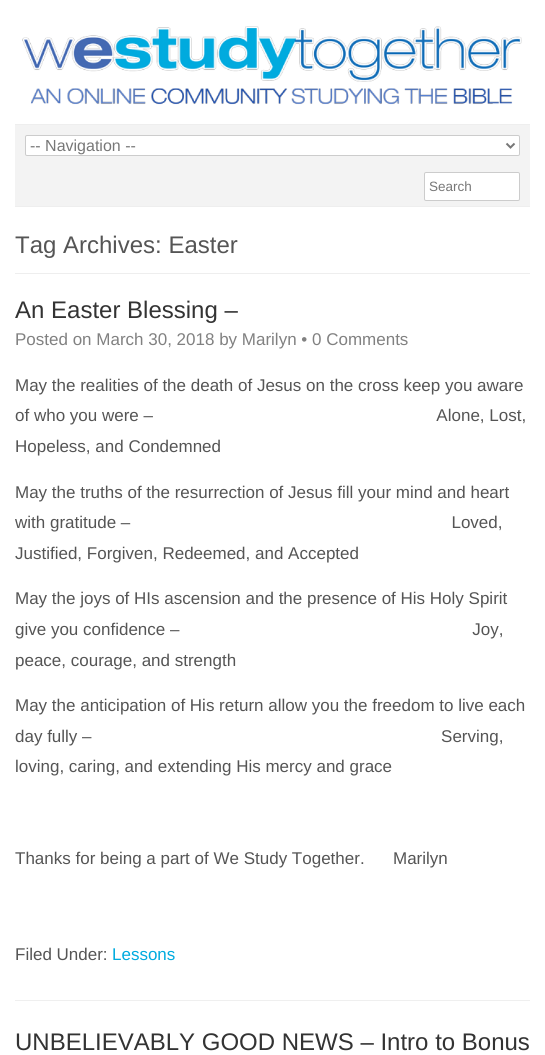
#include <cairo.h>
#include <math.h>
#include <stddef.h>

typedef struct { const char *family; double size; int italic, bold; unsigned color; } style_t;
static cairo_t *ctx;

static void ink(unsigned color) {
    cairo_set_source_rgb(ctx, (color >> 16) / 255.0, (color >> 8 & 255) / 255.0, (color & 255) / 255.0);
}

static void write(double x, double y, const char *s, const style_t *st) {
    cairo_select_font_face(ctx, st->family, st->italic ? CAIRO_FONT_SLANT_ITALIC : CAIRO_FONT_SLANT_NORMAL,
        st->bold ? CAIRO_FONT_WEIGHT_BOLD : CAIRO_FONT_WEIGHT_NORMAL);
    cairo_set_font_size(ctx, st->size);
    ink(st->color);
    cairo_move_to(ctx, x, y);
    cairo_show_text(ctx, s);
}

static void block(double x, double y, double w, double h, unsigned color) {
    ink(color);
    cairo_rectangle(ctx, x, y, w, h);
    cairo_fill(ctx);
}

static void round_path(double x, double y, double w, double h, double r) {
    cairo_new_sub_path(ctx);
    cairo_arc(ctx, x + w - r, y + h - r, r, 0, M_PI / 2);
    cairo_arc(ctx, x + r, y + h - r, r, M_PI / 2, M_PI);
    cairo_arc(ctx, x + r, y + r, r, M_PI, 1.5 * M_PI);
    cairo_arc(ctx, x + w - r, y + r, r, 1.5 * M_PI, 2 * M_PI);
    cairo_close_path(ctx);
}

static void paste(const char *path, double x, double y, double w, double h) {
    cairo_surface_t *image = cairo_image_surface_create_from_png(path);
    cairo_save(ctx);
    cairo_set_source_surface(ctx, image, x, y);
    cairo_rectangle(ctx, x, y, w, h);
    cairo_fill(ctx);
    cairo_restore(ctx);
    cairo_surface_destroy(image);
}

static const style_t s1 = {"Liberation Sans", 16, 0, 0, 0x777777};
static const style_t s2 = {"Liberation Sans", 13.5, 0, 0, 0x777777};
static const style_t s3 = {"Liberation Sans", 24, 0, 0, 0x555555};
static const style_t s4 = {"Liberation Sans", 24, 0, 0, 0x333333};
static const style_t s5 = {"Liberation Sans", 17, 0, 0, 0x818181};
static const style_t s6 = {"Liberation Sans", 17, 0, 0, 0x555555};
static const style_t s7 = {"Liberation Sans", 17, 0, 0, 0x00abdf};

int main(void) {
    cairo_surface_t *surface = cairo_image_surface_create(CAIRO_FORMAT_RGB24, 545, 1055);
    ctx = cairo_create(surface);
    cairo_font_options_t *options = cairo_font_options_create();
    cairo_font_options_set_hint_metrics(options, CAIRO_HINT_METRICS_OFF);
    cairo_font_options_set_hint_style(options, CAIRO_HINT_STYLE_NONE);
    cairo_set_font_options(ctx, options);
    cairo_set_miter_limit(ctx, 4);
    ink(0xffffff);
    cairo_paint(ctx);
    paste("pic1.png", 22, 26, 500, 79);
    block(15, 125, 515, 81, 0xf3f3f3);
    block(15, 124, 515, 1, 0xeeeeee);
    block(15, 206, 515, 1, 0xeeeeee);
    ink(0xffffff);
    round_path(25.5, 135.5, 494, 20, 1.5);
    cairo_fill_preserve(ctx);
    ink(0xcccccc);
    cairo_set_line_width(ctx, 1);
    cairo_stroke(ctx);
    cairo_new_path(ctx);
    cairo_move_to(ctx, 506.5, 143.5);
    cairo_line_to(ctx, 510.5, 147.5);
    cairo_line_to(ctx, 514.5, 143.5);
    ink(0x777777);
    cairo_set_line_width(ctx, 2);
    cairo_stroke(ctx);
    write(30, 151, "-- Navigation --", &s1);
    ink(0xffffff);
    round_path(424.5, 172.5, 95, 28, 1.5);
    cairo_fill_preserve(ctx);
    ink(0xcccccc);
    cairo_set_line_width(ctx, 1);
    cairo_stroke(ctx);
    write(429, 191, "Search", &s2);
    block(15, 273, 515, 1, 0xeeeeee);
    write(15, 253, "Tag Archives: Easter", &s3);
    block(15, 1000, 515, 1, 0xefefef);
    write(15, 318, "An Easter Blessing –", &s4);
    write(15, 345, "Posted on March 30, 2018 by Marilyn • 0 Comments", &s5);
    write(15, 391, "May the realities of the death of Jesus on the cross keep you aware", &s6);
    write(15, 421, "of who you were –                                                            Alone, Lost,", &s6);
    write(15, 452, "Hopeless, and Condemned", &s6);
    write(15, 498, "May the truths of the resurrection of Jesus fill your mind and heart", &s6);
    write(15, 528, "with gratitude –                                                                    Loved,", &s6);
    write(15, 559, "Justified, Forgiven, Redeemed, and Accepted", &s6);
    write(15, 604, "May the joys of HIs ascension and the presence of His Holy Spirit", &s6);
    write(15, 635, "give you confidence –                                                              Joy,", &s6);
    write(15, 666, "peace, courage, and strength", &s6);
    write(15, 711, "May the anticipation of His return allow you the freedom to live each", &s6);
    write(15, 742, "day fully –                                                                          Serving,", &s6);
    write(15, 772, "loving, caring, and extending His mercy and grace", &s6);
    write(15, 864, "Thanks for being a part of We Study Together.      Marilyn", &s6);
    write(15, 960, "Filed Under:", &s6);
    write(112, 960, "Lessons", &s7);
    write(15, 1050, "UNBELIEVABLY GOOD NEWS – Intro to Bonus", &s4);
    cairo_surface_write_to_png(surface, "screenshot.png");
    cairo_font_options_destroy(options);
    cairo_destroy(ctx);
    cairo_surface_destroy(surface);
    return 0;
}
